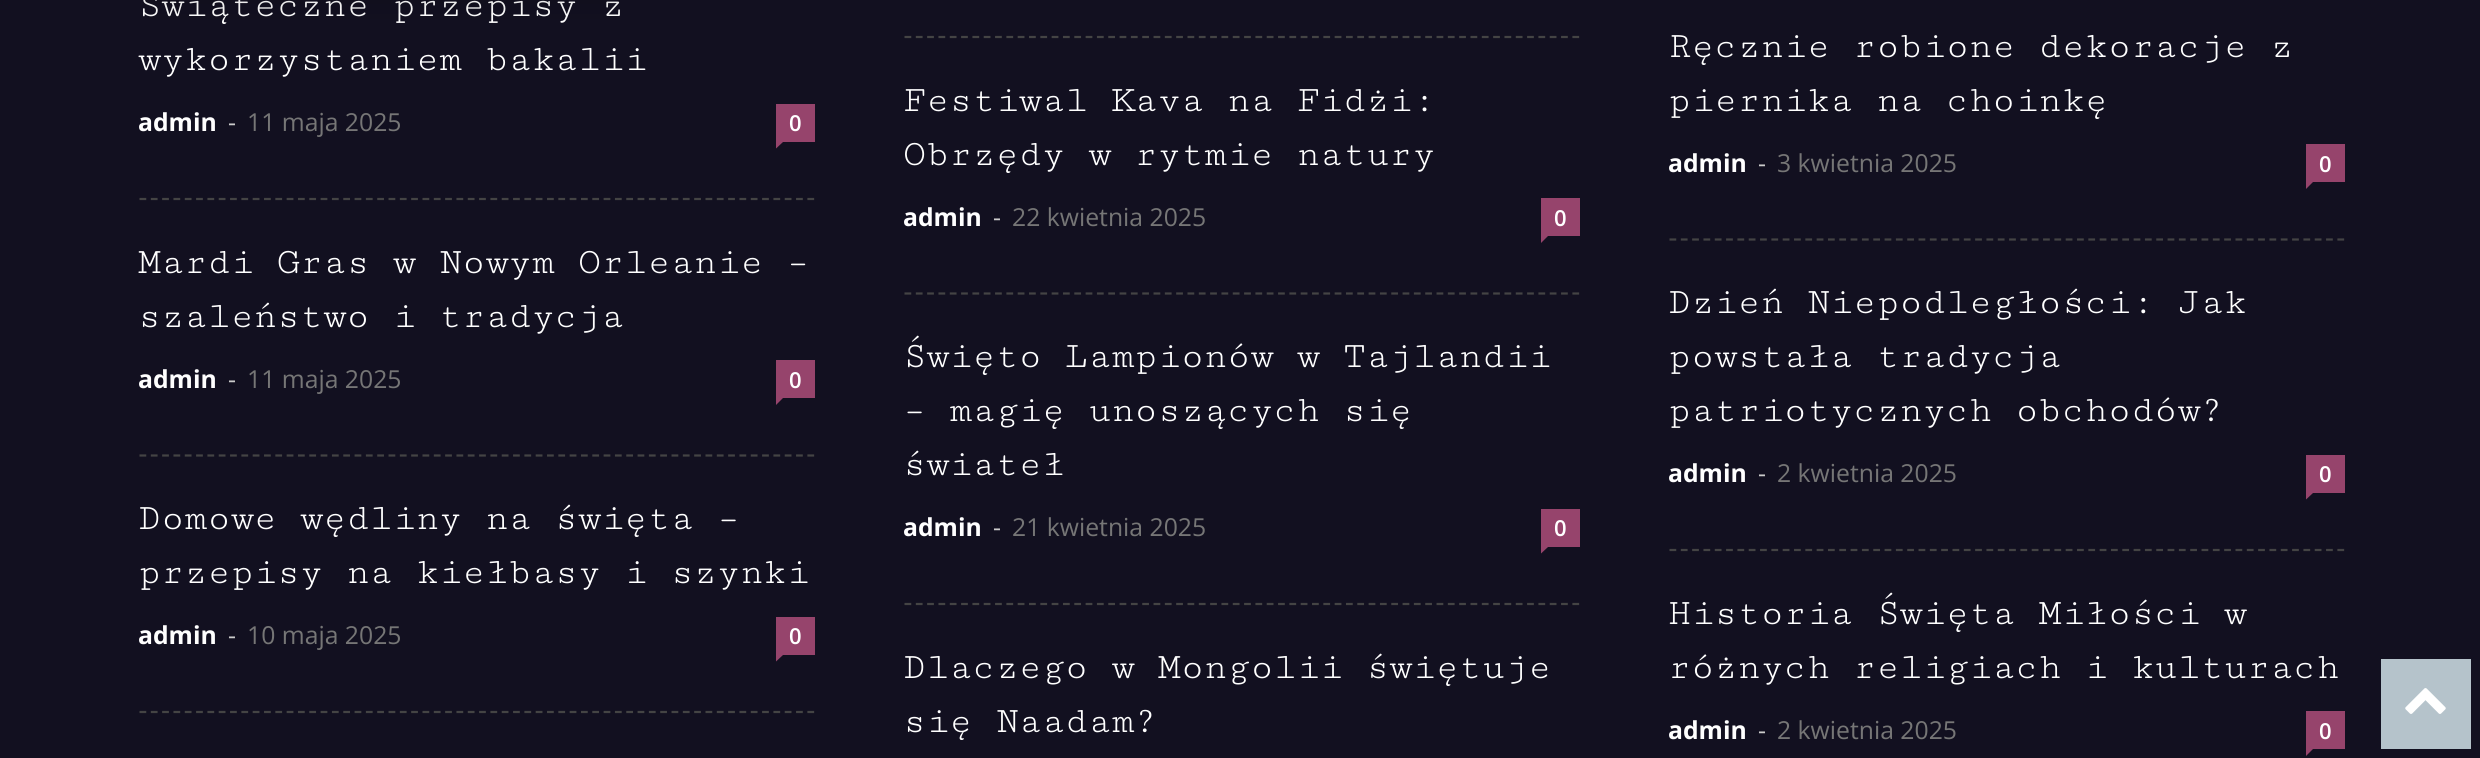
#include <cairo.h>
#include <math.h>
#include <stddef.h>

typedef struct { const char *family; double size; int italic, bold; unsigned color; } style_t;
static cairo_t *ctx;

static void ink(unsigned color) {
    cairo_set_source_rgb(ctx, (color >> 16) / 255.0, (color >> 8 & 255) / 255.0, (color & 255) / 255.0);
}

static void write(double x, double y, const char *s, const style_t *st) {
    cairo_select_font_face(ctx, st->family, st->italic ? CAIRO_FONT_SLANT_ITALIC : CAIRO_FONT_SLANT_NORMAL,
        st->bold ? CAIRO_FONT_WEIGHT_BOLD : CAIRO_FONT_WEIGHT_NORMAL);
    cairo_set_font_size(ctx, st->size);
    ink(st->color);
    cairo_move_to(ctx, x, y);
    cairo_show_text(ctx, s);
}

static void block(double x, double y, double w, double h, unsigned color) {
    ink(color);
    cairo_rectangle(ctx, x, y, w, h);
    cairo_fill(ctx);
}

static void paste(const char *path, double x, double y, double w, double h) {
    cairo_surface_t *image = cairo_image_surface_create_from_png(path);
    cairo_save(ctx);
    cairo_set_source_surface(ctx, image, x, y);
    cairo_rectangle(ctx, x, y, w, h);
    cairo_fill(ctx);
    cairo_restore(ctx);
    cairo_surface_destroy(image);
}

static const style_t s1 = {"Cutive Mono", 38.25, 0, 0, 0xffffff};
static const style_t s2 = {"Open Sans", 24.75, 0, 1, 0xffffff};
static const style_t s3 = {"Open Sans", 24.75, 0, 0, 0xcccccc};
static const style_t s4 = {"Open Sans", 24.75, 0, 0, 0x767676};
static const style_t s5 = {"Open Sans SemiBold", 22, 0, 0, 0xffffff};

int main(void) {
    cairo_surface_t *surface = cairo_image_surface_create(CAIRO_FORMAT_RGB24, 2480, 758);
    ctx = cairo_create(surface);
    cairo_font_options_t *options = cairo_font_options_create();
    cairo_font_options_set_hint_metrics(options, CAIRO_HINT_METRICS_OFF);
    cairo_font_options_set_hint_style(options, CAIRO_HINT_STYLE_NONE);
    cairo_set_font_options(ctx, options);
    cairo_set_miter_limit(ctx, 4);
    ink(0x121020);
    cairo_paint(ctx);
    cairo_new_path(ctx);
    cairo_move_to(ctx, 139.5, 199);
    cairo_line_to(ctx, 814.5, 199);
    ink(0x444444);
    cairo_set_line_width(ctx, 2.2);
    cairo_set_dash(ctx, (double[]){6.75, 4.57}, 2, 0);
    cairo_stroke(ctx);
    write(138, 16, "Świąteczne przepisy z", &s1);
    write(138, 70, "wykorzystaniem bakalii", &s1);
    write(138, 131, "admin", &s2);
    write(228, 131, "-", &s3);
    write(247, 131, "11 maja 2025", &s4);
    block(776, 104, 39, 38, 0x96446c);
    write(789, 131, "0", &s5);
    ink(0x96446c);
    cairo_new_path(ctx);
    cairo_move_to(ctx, 776, 142);
    cairo_line_to(ctx, 783, 142);
    cairo_line_to(ctx, 776, 148.5);
    cairo_close_path(ctx);
    cairo_fill(ctx);
    cairo_new_path(ctx);
    cairo_move_to(ctx, 139.5, 455.5);
    cairo_line_to(ctx, 814.5, 455.5);
    ink(0x444444);
    cairo_stroke(ctx);
    write(138, 273, "Mardi Gras w Nowym Orleanie –", &s1);
    write(138, 327, "szaleństwo i tradycja", &s1);
    write(138, 388, "admin", &s2);
    write(228, 388, "-", &s3);
    write(247, 388, "11 maja 2025", &s4);
    block(776, 360, 39, 38, 0x96446c);
    write(789, 388, "0", &s5);
    ink(0x96446c);
    cairo_new_path(ctx);
    cairo_move_to(ctx, 776, 398);
    cairo_line_to(ctx, 783, 398);
    cairo_line_to(ctx, 776, 405);
    cairo_close_path(ctx);
    cairo_fill(ctx);
    cairo_new_path(ctx);
    cairo_move_to(ctx, 139.5, 712);
    cairo_line_to(ctx, 814.5, 712);
    ink(0x444444);
    cairo_stroke(ctx);
    write(138, 529, "Domowe wędliny na święta –", &s1);
    write(138, 583, "przepisy na kiełbasy i szynki", &s1);
    write(138, 644, "admin", &s2);
    write(228, 644, "-", &s3);
    write(247, 644, "10 maja 2025", &s4);
    block(776, 617, 39, 38, 0x96446c);
    write(789, 644, "0", &s5);
    ink(0x96446c);
    cairo_new_path(ctx);
    cairo_move_to(ctx, 776, 655);
    cairo_line_to(ctx, 783, 655);
    cairo_line_to(ctx, 776, 661.5);
    cairo_close_path(ctx);
    cairo_fill(ctx);
    cairo_new_path(ctx);
    cairo_move_to(ctx, 904.5, 37);
    cairo_line_to(ctx, 1579.5, 37);
    ink(0x444444);
    cairo_stroke(ctx);
    cairo_new_path(ctx);
    cairo_move_to(ctx, 904.5, 293.5);
    cairo_line_to(ctx, 1579.5, 293.5);
    cairo_stroke(ctx);
    write(903, 111, "Festiwal Kava na Fidżi:", &s1);
    write(903, 165, "Obrzędy w rytmie natury", &s1);
    write(903, 226, "admin", &s2);
    write(993, 226, "-", &s3);
    write(1012, 226, "22 kwietnia 2025", &s4);
    block(1541, 198, 39, 38, 0x96446c);
    write(1554, 226, "0", &s5);
    ink(0x96446c);
    cairo_new_path(ctx);
    cairo_move_to(ctx, 1541, 236);
    cairo_line_to(ctx, 1548, 236);
    cairo_line_to(ctx, 1541, 243);
    cairo_close_path(ctx);
    cairo_fill(ctx);
    cairo_new_path(ctx);
    cairo_move_to(ctx, 904.5, 604);
    cairo_line_to(ctx, 1579.5, 604);
    ink(0x444444);
    cairo_stroke(ctx);
    write(903, 367, "Święto Lampionów w Tajlandii", &s1);
    write(903, 421, "– magię unoszących się", &s1);
    write(903, 475, "świateł", &s1);
    write(903, 536, "admin", &s2);
    write(993, 536, "-", &s3);
    write(1012, 536, "21 kwietnia 2025", &s4);
    block(1541, 509, 39, 38, 0x96446c);
    write(1554, 536, "0", &s5);
    ink(0x96446c);
    cairo_new_path(ctx);
    cairo_move_to(ctx, 1541, 547);
    cairo_line_to(ctx, 1548, 547);
    cairo_line_to(ctx, 1541, 553.5);
    cairo_close_path(ctx);
    cairo_fill(ctx);
    write(903, 678, "Dlaczego w Mongolii świętuje", &s1);
    write(903, 732, "się Naadam?", &s1);
    cairo_new_path(ctx);
    cairo_move_to(ctx, 1669.5, 239.5);
    cairo_line_to(ctx, 2344.5, 239.5);
    ink(0x444444);
    cairo_stroke(ctx);
    write(1668, 57, "Ręcznie robione dekoracje z", &s1);
    write(1668, 111, "piernika na choinkę", &s1);
    write(1668, 172, "admin", &s2);
    write(1758, 172, "-", &s3);
    write(1777, 172, "3 kwietnia 2025", &s4);
    block(2306, 144, 39, 38, 0x96446c);
    write(2319, 172, "0", &s5);
    ink(0x96446c);
    cairo_new_path(ctx);
    cairo_move_to(ctx, 2306, 182);
    cairo_line_to(ctx, 2313, 182);
    cairo_line_to(ctx, 2306, 189);
    cairo_close_path(ctx);
    cairo_fill(ctx);
    cairo_new_path(ctx);
    cairo_move_to(ctx, 1669.5, 550);
    cairo_line_to(ctx, 2344.5, 550);
    ink(0x444444);
    cairo_stroke(ctx);
    write(1668, 313, "Dzień Niepodległości: Jak", &s1);
    write(1668, 367, "powstała tradycja", &s1);
    write(1668, 421, "patriotycznych obchodów?", &s1);
    write(1668, 482, "admin", &s2);
    write(1758, 482, "-", &s3);
    write(1777, 482, "2 kwietnia 2025", &s4);
    block(2306, 455, 39, 38, 0x96446c);
    write(2319, 482, "0", &s5);
    ink(0x96446c);
    cairo_new_path(ctx);
    cairo_move_to(ctx, 2306, 493);
    cairo_line_to(ctx, 2313, 493);
    cairo_line_to(ctx, 2306, 499.5);
    cairo_close_path(ctx);
    cairo_fill(ctx);
    write(1668, 624, "Historia Święta Miłości w", &s1);
    write(1668, 678, "różnych religiach i kulturach", &s1);
    write(1668, 739, "admin", &s2);
    write(1758, 739, "-", &s3);
    write(1777, 739, "2 kwietnia 2025", &s4);
    block(2306, 711, 39, 38, 0x96446c);
    write(2319, 739, "0", &s5);
    ink(0x96446c);
    cairo_new_path(ctx);
    cairo_move_to(ctx, 2306, 749);
    cairo_line_to(ctx, 2313, 749);
    cairo_line_to(ctx, 2306, 756);
    cairo_close_path(ctx);
    cairo_fill(ctx);
    paste("pic1.png", 143, 0, 477, 19);
    block(2381, 659, 90, 90, 0xb5c3cb);
    paste("pic2.png", 2405, 688, 41, 26);
    cairo_surface_write_to_png(surface, "screenshot.png");
    cairo_font_options_destroy(options);
    cairo_destroy(ctx);
    cairo_surface_destroy(surface);
    return 0;
}
